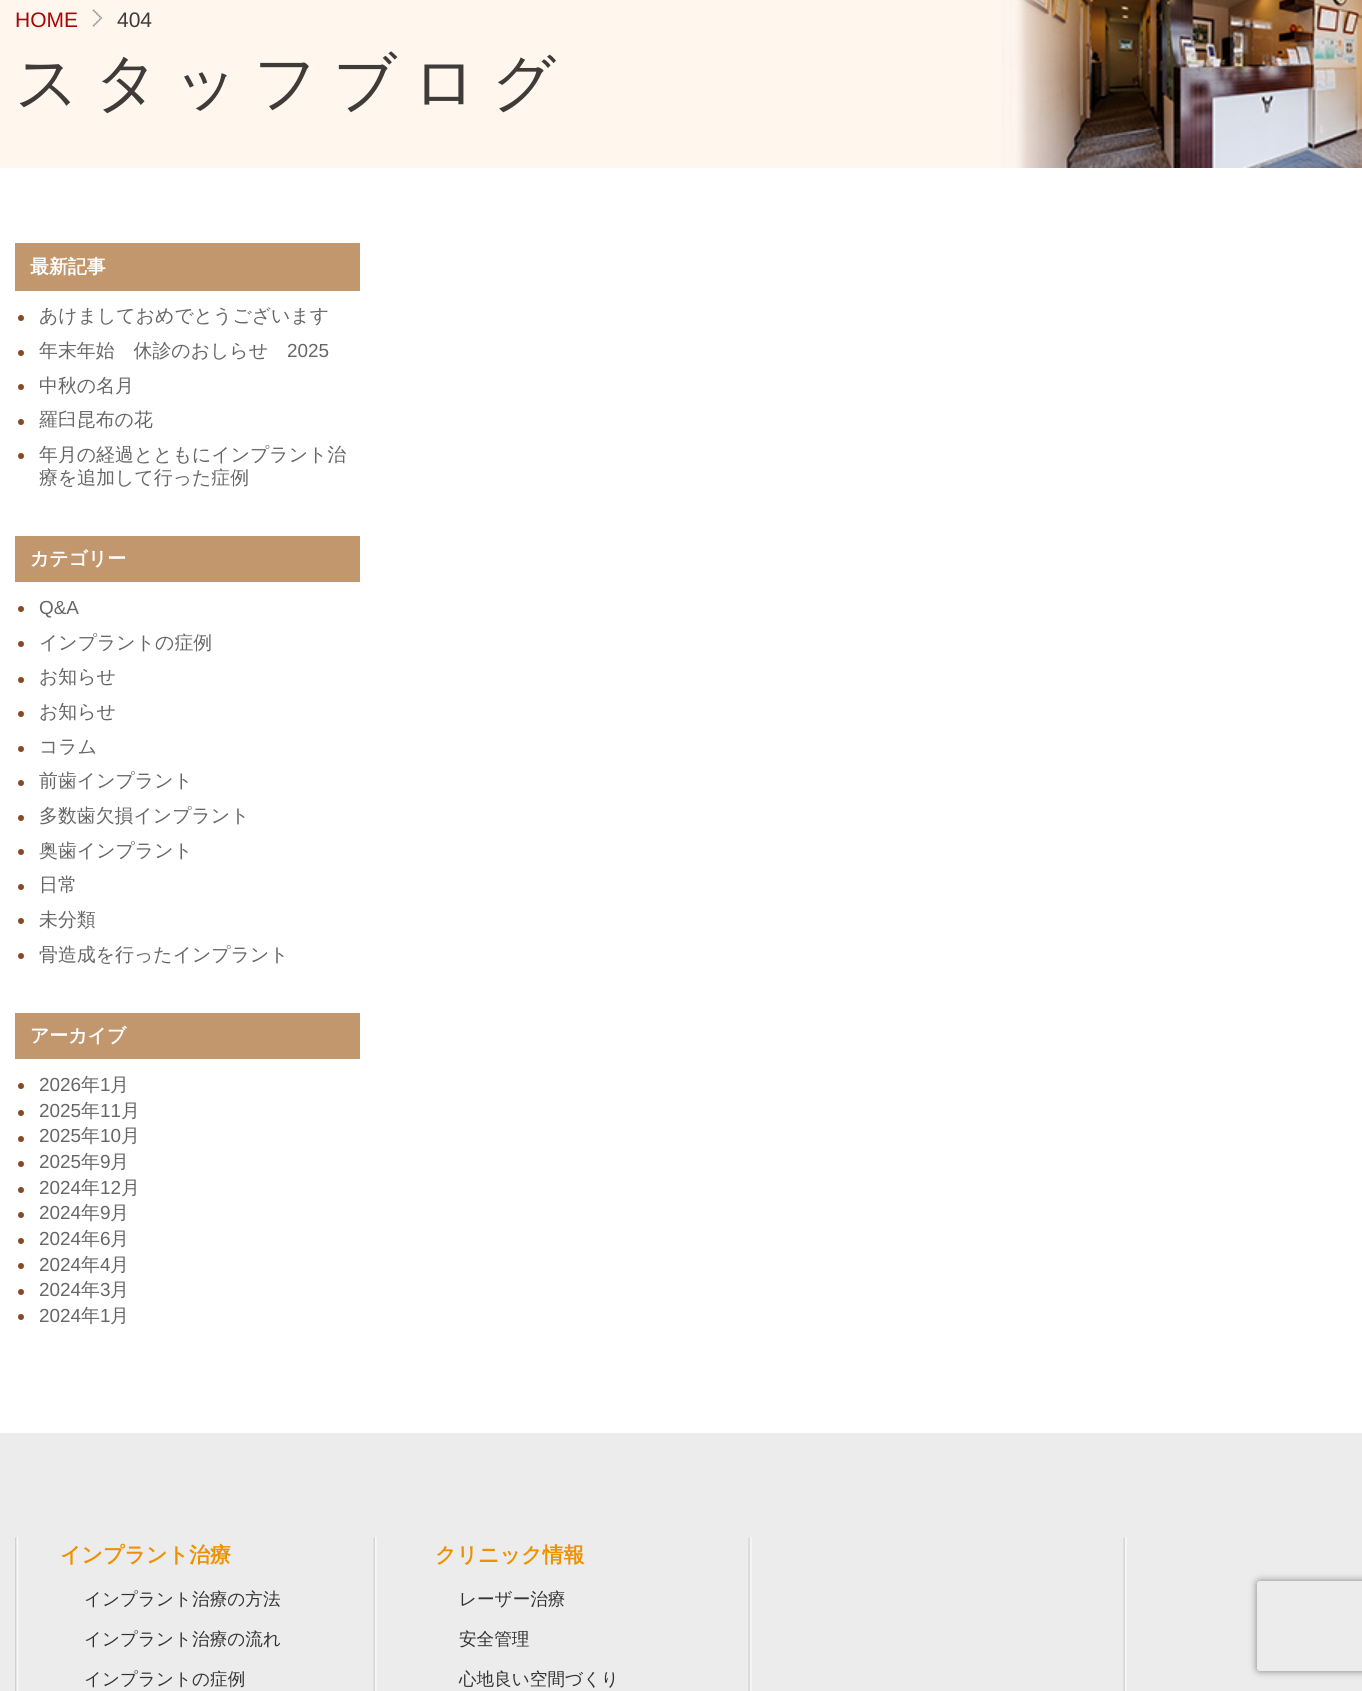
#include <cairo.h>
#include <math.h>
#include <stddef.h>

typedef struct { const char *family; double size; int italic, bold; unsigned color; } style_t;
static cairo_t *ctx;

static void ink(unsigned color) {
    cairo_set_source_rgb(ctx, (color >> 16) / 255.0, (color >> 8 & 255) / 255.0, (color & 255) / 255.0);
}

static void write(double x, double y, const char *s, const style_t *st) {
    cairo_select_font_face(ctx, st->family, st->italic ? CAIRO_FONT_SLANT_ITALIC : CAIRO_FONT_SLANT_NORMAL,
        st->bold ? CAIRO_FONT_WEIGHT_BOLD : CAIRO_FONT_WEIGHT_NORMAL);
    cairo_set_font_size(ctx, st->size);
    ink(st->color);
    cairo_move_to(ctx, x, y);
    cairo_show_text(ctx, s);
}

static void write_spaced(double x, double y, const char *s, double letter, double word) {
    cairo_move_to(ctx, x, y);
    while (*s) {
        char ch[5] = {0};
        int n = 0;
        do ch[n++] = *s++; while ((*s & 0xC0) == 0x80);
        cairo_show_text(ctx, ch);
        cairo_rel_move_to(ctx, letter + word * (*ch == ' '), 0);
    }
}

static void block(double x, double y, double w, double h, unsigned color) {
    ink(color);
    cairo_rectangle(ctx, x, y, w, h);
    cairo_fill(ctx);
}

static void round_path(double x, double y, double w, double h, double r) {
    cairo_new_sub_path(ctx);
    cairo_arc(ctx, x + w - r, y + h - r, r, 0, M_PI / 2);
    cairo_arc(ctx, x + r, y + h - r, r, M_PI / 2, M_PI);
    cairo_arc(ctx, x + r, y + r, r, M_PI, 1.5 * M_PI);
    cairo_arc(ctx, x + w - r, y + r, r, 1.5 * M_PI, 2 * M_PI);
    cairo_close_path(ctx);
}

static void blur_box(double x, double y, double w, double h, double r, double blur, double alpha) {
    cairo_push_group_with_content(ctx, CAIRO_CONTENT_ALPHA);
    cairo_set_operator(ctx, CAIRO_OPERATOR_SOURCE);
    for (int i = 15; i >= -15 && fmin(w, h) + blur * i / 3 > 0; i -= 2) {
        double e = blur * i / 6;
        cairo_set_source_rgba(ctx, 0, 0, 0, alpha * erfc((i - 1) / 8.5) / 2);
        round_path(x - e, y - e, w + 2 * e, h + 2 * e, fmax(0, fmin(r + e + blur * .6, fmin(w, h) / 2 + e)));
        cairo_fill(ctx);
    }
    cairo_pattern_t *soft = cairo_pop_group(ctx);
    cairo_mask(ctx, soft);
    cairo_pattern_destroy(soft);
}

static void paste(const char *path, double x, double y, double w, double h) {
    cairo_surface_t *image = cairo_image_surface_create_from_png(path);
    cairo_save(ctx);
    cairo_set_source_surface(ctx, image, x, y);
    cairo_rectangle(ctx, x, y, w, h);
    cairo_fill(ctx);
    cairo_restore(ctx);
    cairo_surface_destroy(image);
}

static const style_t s1 = {"Liberation Sans", 21, 0, 0, 0xae0303};
static const style_t s2 = {"Liberation Sans", 21, 0, 0, 0x3e3b39};
static const style_t s3 = {"WenQuanYi Zen Hei", 18.9, 0, 1, 0xffffff};
static const style_t s4 = {"WenQuanYi Zen Hei Medium", 18.9, 0, 0, 0x666666};
static const style_t s5 = {"Liberation Sans", 18.9, 0, 0, 0x666666};
static const style_t s6 = {"WenQuanYi Zen Hei", 21, 0, 1, 0xed9100};
static const style_t s7 = {"WenQuanYi Zen Hei Medium", 17.6, 0, 0, 0x333333};

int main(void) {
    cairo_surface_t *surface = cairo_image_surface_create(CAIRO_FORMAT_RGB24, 1362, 1691);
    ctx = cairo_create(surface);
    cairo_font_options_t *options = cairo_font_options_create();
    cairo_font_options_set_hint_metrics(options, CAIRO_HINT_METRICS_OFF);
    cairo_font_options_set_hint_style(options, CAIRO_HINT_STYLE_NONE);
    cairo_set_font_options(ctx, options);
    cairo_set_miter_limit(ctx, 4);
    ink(0xffffff);
    cairo_paint(ctx);
    block(0, 0, 1001, 168, 0xfff6ee);
    paste("pic1.png", 1001, 0, 361, 168);
    paste("pic2.png", 92, 9, 11, 18);
    write(15, 27, "HOME", &s1);
    write(117, 27, "404", &s2);
    cairo_select_font_face(ctx, "WenQuanYi Zen Hei Medium", CAIRO_FONT_SLANT_NORMAL, CAIRO_FONT_WEIGHT_NORMAL);
    cairo_set_font_size(ctx, 63);
    write_spaced(15, 104, "スタッフブログ", 15, 0);
    block(15, 243, 345, 48, 0xc2976d);
    write(30, 273, "最新記事", &s3);
    ink(0x894824);
    cairo_new_path(ctx);
    cairo_arc(ctx, 21, 318, 3, 0, 2 * M_PI);
    cairo_fill(ctx);
    write(39, 322, "あけましておめでとうございます", &s4);
    ink(0x894824);
    cairo_new_path(ctx);
    cairo_arc(ctx, 21, 353, 3, 0, 2 * M_PI);
    cairo_fill(ctx);
    write(39, 357, "年末年始　休診のおしらせ", &s4);
    write(287, 357, "2025", &s5);
    ink(0x894824);
    cairo_new_path(ctx);
    cairo_arc(ctx, 21, 387, 3, 0, 2 * M_PI);
    cairo_fill(ctx);
    write(39, 392, "中秋の名月", &s4);
    ink(0x894824);
    cairo_new_path(ctx);
    cairo_arc(ctx, 21, 422, 3, 0, 2 * M_PI);
    cairo_fill(ctx);
    write(39, 426, "羅臼昆布の花", &s4);
    ink(0x894824);
    cairo_new_path(ctx);
    cairo_arc(ctx, 21, 456, 3, 0, 2 * M_PI);
    cairo_fill(ctx);
    write(39, 461, "年月の経過とともにインプラント治", &s4);
    write(39, 484, "療を追加して行った症例", &s4);
    block(15, 536, 345, 46, 0xc2976d);
    write(30, 565, "カテゴリー", &s3);
    ink(0x894824);
    cairo_new_path(ctx);
    cairo_arc(ctx, 21, 609, 3, 0, 2 * M_PI);
    cairo_fill(ctx);
    write(39, 614, "Q&A", &s5);
    ink(0x894824);
    cairo_new_path(ctx);
    cairo_arc(ctx, 21, 644, 3, 0, 2 * M_PI);
    cairo_fill(ctx);
    write(39, 649, "インプラントの症例", &s4);
    ink(0x894824);
    cairo_new_path(ctx);
    cairo_arc(ctx, 21, 680, 3, 0, 2 * M_PI);
    cairo_fill(ctx);
    write(39, 683, "お知らせ", &s4);
    ink(0x894824);
    cairo_new_path(ctx);
    cairo_arc(ctx, 21, 714, 3, 0, 2 * M_PI);
    cairo_fill(ctx);
    write(39, 718, "お知らせ", &s4);
    ink(0x894824);
    cairo_new_path(ctx);
    cairo_arc(ctx, 21, 749, 3, 0, 2 * M_PI);
    cairo_fill(ctx);
    write(39, 753, "コラム", &s4);
    ink(0x894824);
    cairo_new_path(ctx);
    cairo_arc(ctx, 21, 783, 3, 0, 2 * M_PI);
    cairo_fill(ctx);
    write(39, 787, "前歯インプラント", &s4);
    ink(0x894824);
    cairo_new_path(ctx);
    cairo_arc(ctx, 21, 818, 3, 0, 2 * M_PI);
    cairo_fill(ctx);
    write(39, 822, "多数歯欠損インプラント", &s4);
    ink(0x894824);
    cairo_new_path(ctx);
    cairo_arc(ctx, 21, 852, 3, 0, 2 * M_PI);
    cairo_fill(ctx);
    write(39, 857, "奥歯インプラント", &s4);
    ink(0x894824);
    cairo_new_path(ctx);
    cairo_arc(ctx, 21, 887, 3, 0, 2 * M_PI);
    cairo_fill(ctx);
    write(39, 891, "日常", &s4);
    ink(0x894824);
    cairo_new_path(ctx);
    cairo_arc(ctx, 21, 921, 3, 0, 2 * M_PI);
    cairo_fill(ctx);
    write(39, 926, "未分類", &s4);
    ink(0x894824);
    cairo_new_path(ctx);
    cairo_arc(ctx, 21, 956, 3, 0, 2 * M_PI);
    cairo_fill(ctx);
    write(39, 961, "骨造成を行ったインプラント", &s4);
    block(15, 1013, 345, 46, 0xc2976d);
    write(30, 1042, "アーカイブ", &s3);
    ink(0x894824);
    cairo_new_path(ctx);
    cairo_arc(ctx, 21, 1086, 3, 0, 2 * M_PI);
    cairo_fill(ctx);
    write(39, 1091, "2026", &s5);
    write(81, 1091, "年", &s4);
    write(100, 1091, "1", &s5);
    write(110, 1091, "月", &s4);
    ink(0x894824);
    cairo_new_path(ctx);
    cairo_arc(ctx, 21, 1113, 3, 0, 2 * M_PI);
    cairo_fill(ctx);
    write(39, 1117, "2025", &s5);
    write(81, 1117, "年", &s4);
    write(100, 1117, "11", &s5);
    write(121, 1117, "月", &s4);
    ink(0x894824);
    cairo_new_path(ctx);
    cairo_arc(ctx, 21, 1139, 3, 0, 2 * M_PI);
    cairo_fill(ctx);
    write(39, 1142, "2025", &s5);
    write(81, 1142, "年", &s4);
    write(100, 1142, "10", &s5);
    write(121, 1142, "月", &s4);
    ink(0x894824);
    cairo_new_path(ctx);
    cairo_arc(ctx, 21, 1164, 3, 0, 2 * M_PI);
    cairo_fill(ctx);
    write(39, 1168, "2025", &s5);
    write(81, 1168, "年", &s4);
    write(100, 1168, "9", &s5);
    write(110, 1168, "月", &s4);
    ink(0x894824);
    cairo_new_path(ctx);
    cairo_arc(ctx, 21, 1190, 3, 0, 2 * M_PI);
    cairo_fill(ctx);
    write(39, 1194, "2024", &s5);
    write(81, 1194, "年", &s4);
    write(100, 1194, "12", &s5);
    write(121, 1194, "月", &s4);
    ink(0x894824);
    cairo_new_path(ctx);
    cairo_arc(ctx, 21, 1215, 3, 0, 2 * M_PI);
    cairo_fill(ctx);
    write(39, 1219, "2024", &s5);
    write(81, 1219, "年", &s4);
    write(100, 1219, "9", &s5);
    write(110, 1219, "月", &s4);
    ink(0x894824);
    cairo_new_path(ctx);
    cairo_arc(ctx, 21, 1241, 3, 0, 2 * M_PI);
    cairo_fill(ctx);
    write(39, 1245, "2024", &s5);
    write(81, 1245, "年", &s4);
    write(100, 1245, "6", &s5);
    write(110, 1245, "月", &s4);
    ink(0x894824);
    cairo_new_path(ctx);
    cairo_arc(ctx, 21, 1266, 3, 0, 2 * M_PI);
    cairo_fill(ctx);
    write(39, 1271, "2024", &s5);
    write(81, 1271, "年", &s4);
    write(100, 1271, "4", &s5);
    write(110, 1271, "月", &s4);
    ink(0x894824);
    cairo_new_path(ctx);
    cairo_arc(ctx, 21, 1292, 3, 0, 2 * M_PI);
    cairo_fill(ctx);
    write(39, 1296, "2024", &s5);
    write(81, 1296, "年", &s4);
    write(100, 1296, "3", &s5);
    write(110, 1296, "月", &s4);
    ink(0x894824);
    cairo_new_path(ctx);
    cairo_arc(ctx, 21, 1317, 3, 0, 2 * M_PI);
    cairo_fill(ctx);
    write(39, 1322, "2024", &s5);
    write(81, 1322, "年", &s4);
    write(100, 1322, "1", &s5);
    write(110, 1322, "月", &s4);
    block(0, 1433, 1362, 258, 0xececec);
    paste("pic3.png", 15, 1537, 1112, 154);
    write(60, 1562, "インプラント治療", &s6);
    write(84, 1605, "インプラント治療の方法", &s7);
    write(84, 1645, "インプラント治療の流れ", &s7);
    write(84, 1685, "インプラントの症例", &s7);
    write(435, 1562, "クリニック情報", &s6);
    write(459, 1605, "レーザー治療", &s7);
    write(459, 1645, "安全管理", &s7);
    write(459, 1685, "心地良い空間づくり", &s7);
    cairo_save(ctx);
    cairo_set_fill_rule(ctx, CAIRO_FILL_RULE_EVEN_ODD);
    cairo_new_path(ctx);
    cairo_move_to(ctx, 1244, 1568);
    cairo_line_to(ctx, 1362, 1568);
    cairo_line_to(ctx, 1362, 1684);
    cairo_line_to(ctx, 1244, 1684);
    cairo_close_path(ctx);
    cairo_move_to(ctx, 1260, 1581);
    cairo_line_to(ctx, 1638, 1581);
    cairo_curve_to(ctx, 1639.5, 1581, 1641, 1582.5, 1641, 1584);
    cairo_line_to(ctx, 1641, 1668);
    cairo_curve_to(ctx, 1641, 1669.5, 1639.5, 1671, 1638, 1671);
    cairo_line_to(ctx, 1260, 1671);
    cairo_curve_to(ctx, 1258.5, 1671, 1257, 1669.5, 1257, 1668);
    cairo_line_to(ctx, 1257, 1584);
    cairo_curve_to(ctx, 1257, 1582.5, 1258.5, 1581, 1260, 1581);
    cairo_close_path(ctx);
    cairo_clip(ctx);
    ink(0x808080);
    blur_box(1257, 1581, 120, 90, 3, 4, 1);
    cairo_restore(ctx);
    cairo_surface_write_to_png(surface, "screenshot.png");
    cairo_font_options_destroy(options);
    cairo_destroy(ctx);
    cairo_surface_destroy(surface);
    return 0;
}
